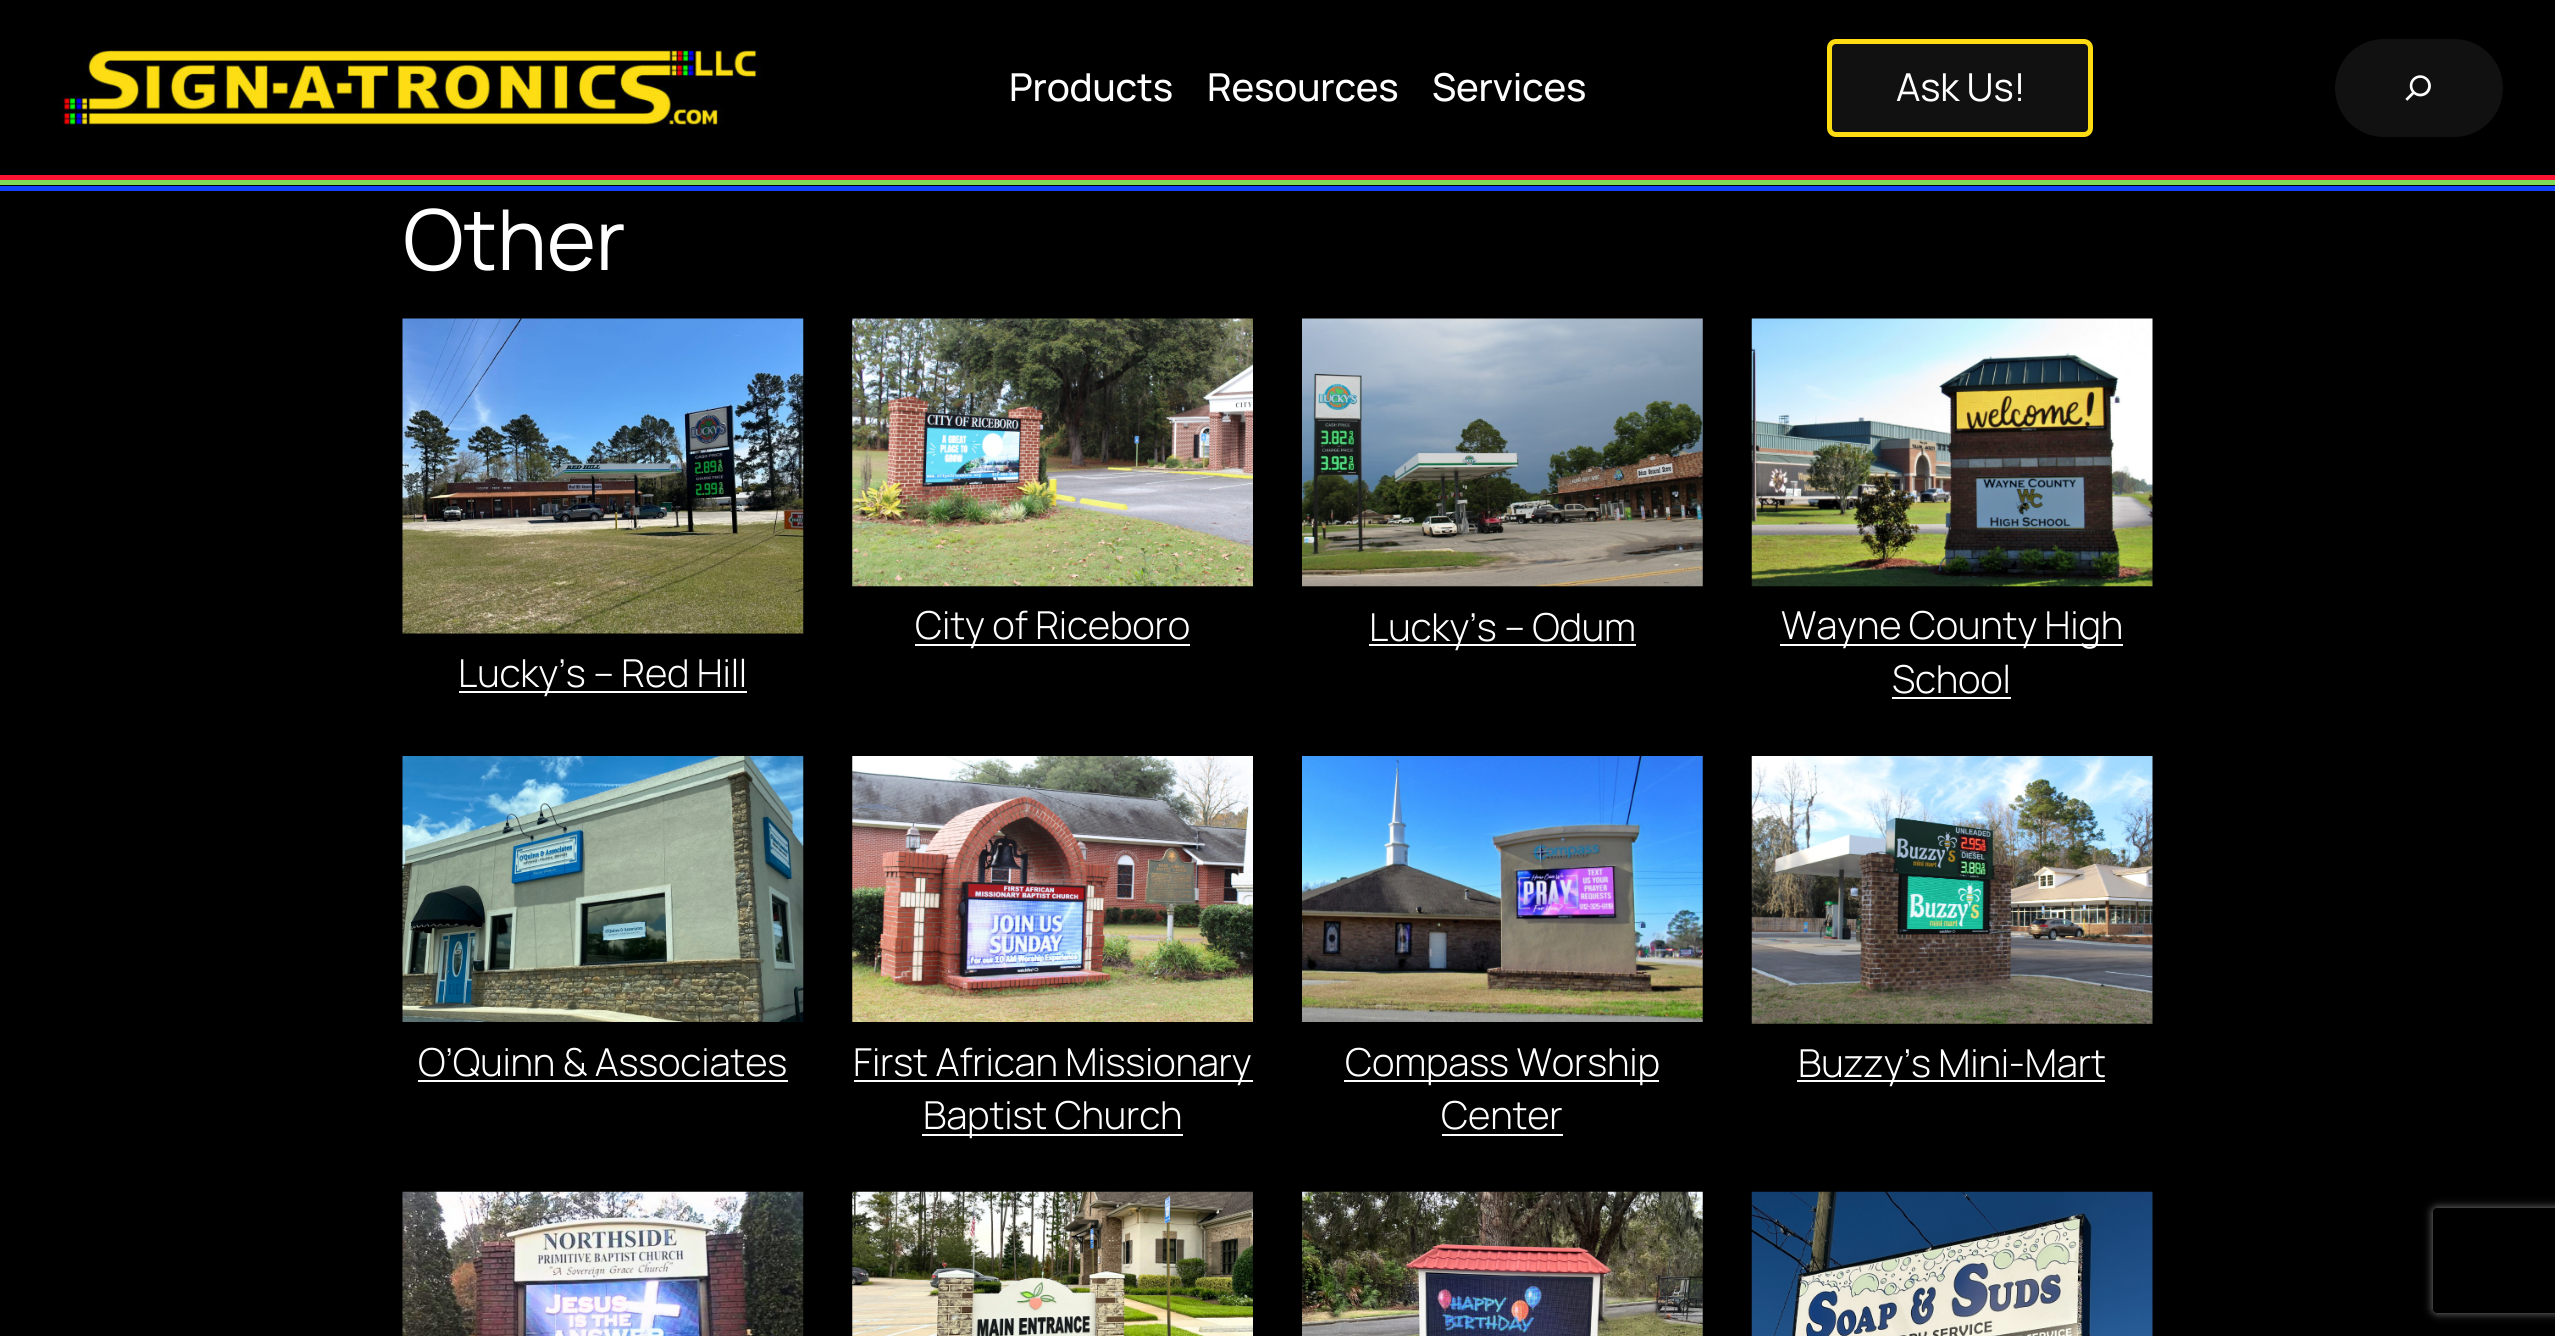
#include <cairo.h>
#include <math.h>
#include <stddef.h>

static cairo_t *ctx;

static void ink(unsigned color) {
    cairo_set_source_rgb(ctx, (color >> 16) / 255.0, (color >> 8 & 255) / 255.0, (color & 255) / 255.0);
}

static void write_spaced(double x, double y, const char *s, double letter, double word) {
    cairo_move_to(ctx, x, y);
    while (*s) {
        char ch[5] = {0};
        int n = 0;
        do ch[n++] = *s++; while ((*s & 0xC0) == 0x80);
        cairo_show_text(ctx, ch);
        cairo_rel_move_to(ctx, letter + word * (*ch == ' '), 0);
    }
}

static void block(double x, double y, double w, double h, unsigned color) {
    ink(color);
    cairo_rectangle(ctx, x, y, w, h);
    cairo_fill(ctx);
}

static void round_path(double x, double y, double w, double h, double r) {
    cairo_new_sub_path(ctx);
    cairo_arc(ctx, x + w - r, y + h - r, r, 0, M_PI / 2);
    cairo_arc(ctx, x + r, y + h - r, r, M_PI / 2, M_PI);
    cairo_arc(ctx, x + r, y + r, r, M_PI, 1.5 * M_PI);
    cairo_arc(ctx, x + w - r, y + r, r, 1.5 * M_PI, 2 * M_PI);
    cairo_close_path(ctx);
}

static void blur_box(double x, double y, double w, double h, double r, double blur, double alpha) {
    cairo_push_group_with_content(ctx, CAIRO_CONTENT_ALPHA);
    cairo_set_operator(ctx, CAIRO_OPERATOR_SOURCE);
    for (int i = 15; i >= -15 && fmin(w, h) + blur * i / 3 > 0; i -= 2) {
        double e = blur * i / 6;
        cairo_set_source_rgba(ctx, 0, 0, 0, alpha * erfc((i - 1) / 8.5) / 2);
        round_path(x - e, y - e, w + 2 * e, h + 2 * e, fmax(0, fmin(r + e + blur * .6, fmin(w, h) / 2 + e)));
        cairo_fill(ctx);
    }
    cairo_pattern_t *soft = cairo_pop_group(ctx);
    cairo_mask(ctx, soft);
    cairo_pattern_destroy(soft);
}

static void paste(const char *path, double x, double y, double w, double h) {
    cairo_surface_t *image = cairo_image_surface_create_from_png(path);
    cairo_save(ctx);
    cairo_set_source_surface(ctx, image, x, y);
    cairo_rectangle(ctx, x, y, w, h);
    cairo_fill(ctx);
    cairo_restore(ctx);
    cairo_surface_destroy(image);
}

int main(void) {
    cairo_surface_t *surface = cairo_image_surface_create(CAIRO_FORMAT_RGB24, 2555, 1336);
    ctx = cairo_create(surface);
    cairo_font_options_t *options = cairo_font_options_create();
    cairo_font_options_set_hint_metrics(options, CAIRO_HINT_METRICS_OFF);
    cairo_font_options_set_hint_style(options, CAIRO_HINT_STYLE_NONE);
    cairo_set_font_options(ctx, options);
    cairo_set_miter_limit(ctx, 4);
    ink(0x000000);
    cairo_paint(ctx);
    block(0, 180, 2555, 5, 0x7ed957);
    block(0, 175, 2555, 5, 0xff1434);
    paste("pic1.png", 60, 50, 701, 75);
    cairo_select_font_face(ctx, "Manrope Medium", CAIRO_FONT_SLANT_NORMAL, CAIRO_FONT_WEIGHT_NORMAL);
    cairo_set_font_size(ctx, 38.5);
    ink(0xffffff);
    write_spaced(1009, 101, "Products", -0.2, 0);
    write_spaced(1207, 101, "Resources", -0.2, 0);
    write_spaced(1432, 101, "Services", -0.2, 0);
    ink(0x111111);
    round_path(1829.5, 41.5, 261, 93, 6.5);
    cairo_fill_preserve(ctx);
    ink(0xffdc11);
    cairo_set_line_width(ctx, 5);
    cairo_stroke(ctx);
    cairo_select_font_face(ctx, "Manrope", CAIRO_FONT_SLANT_NORMAL, CAIRO_FONT_WEIGHT_NORMAL);
    ink(0xffffff);
    write_spaced(1896, 101, "Ask Us!", -0.2, 0);
    ink(0x111111);
    round_path(2335, 39, 168, 98, 49);
    cairo_fill(ctx);
    paste("pic2.png", 2405, 75, 26, 26);
    block(0, 186, 2555, 5, 0x1143ff);
    cairo_set_font_size(ctx, 84);
    ink(0xffffff);
    write_spaced(403, 270, "Other", -0.2, 0);
    paste("pic3.png", 852, 318, 401, 269);
    block(915, 644, 275, 2, 0xffffff);
    cairo_select_font_face(ctx, "Manrope Light", CAIRO_FONT_SLANT_NORMAL, CAIRO_FONT_WEIGHT_NORMAL);
    cairo_set_font_size(ctx, 38.5);
    write_spaced(915, 639, "City of Riceboro", -0.2, 0);
    paste("pic4.png", 1302, 318, 401, 269);
    block(1369, 644, 267, 2, 0xffffff);
    write_spaced(1369, 641, "Lucky’s – Odum", -0.2, 0);
    paste("pic5.png", 1751, 318, 402, 269);
    block(1780, 644, 343, 2, 0xffffff);
    write_spaced(1781, 639, "Wayne County High", -0.2, 0);
    write_spaced(1892, 693, "School", -0.2, 0);
    block(1892, 697, 119, 2, 0xffffff);
    paste("pic6.png", 402, 318, 402, 316);
    block(459, 691, 288, 2, 0xffffff);
    write_spaced(458, 687, "Lucky’s – Red Hill", -0.2, 0);
    paste("pic7.png", 402, 756, 402, 266);
    write_spaced(418, 1076, "O’Quinn & Associates", -0.2, 0);
    block(418, 1080, 370, 2, 0xffffff);
    paste("pic8.png", 852, 756, 401, 266);
    block(854, 1080, 399, 2, 0xffffff);
    write_spaced(853, 1076, "First African Missionary", -0.2, 0);
    block(922, 1134, 261, 2, 0xffffff);
    write_spaced(923, 1129, "Baptist Church", -0.2, 0);
    paste("pic9.png", 1302, 756, 401, 266);
    block(1344, 1080, 315, 2, 0xffffff);
    write_spaced(1345, 1076, "Compass Worship", -0.2, 0);
    write_spaced(1441, 1129, "Center", -0.2, 0);
    block(1442, 1134, 121, 2, 0xffffff);
    paste("pic10.png", 1751, 756, 402, 268);
    block(1797, 1080, 308, 2, 0xffffff);
    write_spaced(1798, 1077, "Buzzy’s Mini-Mart", -0.2, 0);
    paste("pic11.png", 402, 1191, 402, 145);
    paste("pic12.png", 852, 1191, 401, 145);
    paste("pic13.png", 1302, 1191, 401, 145);
    paste("pic14.png", 1751, 1191, 402, 145);
    cairo_save(ctx);
    cairo_set_fill_rule(ctx, CAIRO_FILL_RULE_EVEN_ODD);
    cairo_new_path(ctx);
    cairo_move_to(ctx, 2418, 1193);
    cairo_line_to(ctx, 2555, 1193);
    cairo_line_to(ctx, 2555, 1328);
    cairo_line_to(ctx, 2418, 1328);
    cairo_close_path(ctx);
    cairo_move_to(ctx, 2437, 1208);
    cairo_line_to(ctx, 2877, 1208);
    cairo_curve_to(ctx, 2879, 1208, 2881, 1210, 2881, 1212);
    cairo_line_to(ctx, 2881, 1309);
    cairo_curve_to(ctx, 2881, 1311, 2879, 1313, 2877, 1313);
    cairo_line_to(ctx, 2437, 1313);
    cairo_curve_to(ctx, 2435, 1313, 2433, 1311, 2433, 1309);
    cairo_line_to(ctx, 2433, 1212);
    cairo_curve_to(ctx, 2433, 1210, 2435, 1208, 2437, 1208);
    cairo_close_path(ctx);
    cairo_clip(ctx);
    ink(0x808080);
    blur_box(2433, 1208, 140, 105, 4, 4.5, 1);
    cairo_restore(ctx);
    cairo_surface_write_to_png(surface, "screenshot.png");
    cairo_font_options_destroy(options);
    cairo_destroy(ctx);
    cairo_surface_destroy(surface);
    return 0;
}
